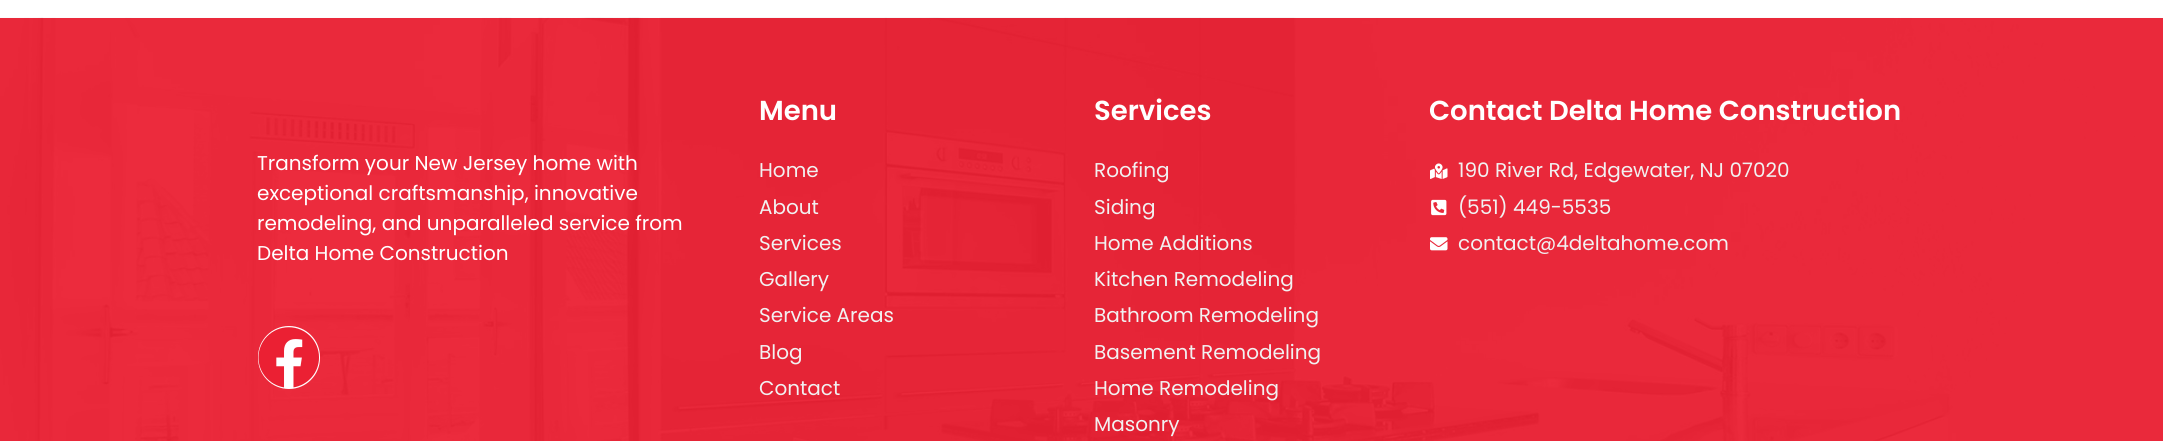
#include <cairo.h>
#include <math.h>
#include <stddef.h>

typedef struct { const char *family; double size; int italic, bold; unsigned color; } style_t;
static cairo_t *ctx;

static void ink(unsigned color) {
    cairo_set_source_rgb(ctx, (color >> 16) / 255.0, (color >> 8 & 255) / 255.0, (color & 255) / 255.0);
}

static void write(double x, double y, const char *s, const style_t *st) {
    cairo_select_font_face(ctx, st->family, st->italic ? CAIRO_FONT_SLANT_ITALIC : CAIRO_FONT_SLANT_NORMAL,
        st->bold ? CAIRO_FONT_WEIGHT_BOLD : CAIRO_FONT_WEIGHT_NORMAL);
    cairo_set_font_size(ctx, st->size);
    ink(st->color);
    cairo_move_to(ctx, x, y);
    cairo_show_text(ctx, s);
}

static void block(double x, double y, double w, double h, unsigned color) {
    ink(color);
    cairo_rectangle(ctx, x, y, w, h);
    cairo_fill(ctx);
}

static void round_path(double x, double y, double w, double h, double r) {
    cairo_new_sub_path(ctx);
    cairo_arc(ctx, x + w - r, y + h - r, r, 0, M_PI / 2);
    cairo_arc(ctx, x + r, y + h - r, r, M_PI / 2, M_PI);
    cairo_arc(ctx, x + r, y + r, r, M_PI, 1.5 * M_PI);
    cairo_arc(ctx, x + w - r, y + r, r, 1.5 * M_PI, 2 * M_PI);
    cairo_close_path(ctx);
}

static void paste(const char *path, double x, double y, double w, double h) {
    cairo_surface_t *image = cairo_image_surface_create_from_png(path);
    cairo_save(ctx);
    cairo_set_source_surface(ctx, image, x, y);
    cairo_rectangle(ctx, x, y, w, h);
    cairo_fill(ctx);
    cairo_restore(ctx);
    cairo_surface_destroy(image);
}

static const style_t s1 = {"Poppins", 20, 0, 0, 0xffffff};
static const style_t s2 = {"Poppins SemiBold", 27.5, 0, 0, 0xffffff};
static const style_t s3 = {"Poppins", 20, 0, 0, 0xf1f1f1};

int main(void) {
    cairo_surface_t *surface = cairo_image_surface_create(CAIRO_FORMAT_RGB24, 2163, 441);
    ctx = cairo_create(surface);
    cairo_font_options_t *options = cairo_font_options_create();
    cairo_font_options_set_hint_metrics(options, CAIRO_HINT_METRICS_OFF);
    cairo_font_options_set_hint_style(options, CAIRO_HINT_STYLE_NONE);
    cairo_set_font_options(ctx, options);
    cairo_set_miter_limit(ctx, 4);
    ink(0xffffff);
    cairo_paint(ctx);
    block(0, 18, 2163, 423, 0xeb2033);
    paste("pic1.png", 0, 17, 2163, 424);
    write(257, 170, "Transform your New Jersey home with", &s1);
    write(257, 200, "exceptional craftsmanship, innovative", &s1);
    write(257, 230, "remodeling, and unparalleled service from", &s1);
    write(257, 260, "Delta Home Construction", &s1);
    round_path(258, 326, 62, 63, 31);
    cairo_fill(ctx);
    paste("pic2.png", 258, 327, 61, 61);
    write(759, 120, "Menu", &s2);
    write(759, 177, "Home", &s3);
    write(759, 214, "About", &s3);
    write(759, 250, "Services", &s3);
    write(759, 286, "Gallery", &s3);
    write(759, 322, "Service Areas", &s3);
    write(759, 359, "Blog", &s3);
    write(759, 395, "Contact", &s3);
    write(1094, 120, "Services", &s2);
    write(1094, 177, "Roofing", &s3);
    write(1094, 214, "Siding", &s3);
    write(1094, 250, "Home Additions", &s3);
    write(1094, 286, "Kitchen Remodeling", &s3);
    write(1094, 322, "Bathroom Remodeling", &s3);
    write(1094, 359, "Basement Remodeling", &s3);
    write(1094, 395, "Home Remodeling", &s3);
    write(1094, 431, "Masonry", &s3);
    write(1429, 120, "Contact Delta Home Construction", &s2);
    paste("pic3.png", 1430, 163, 18, 16);
    write(1458, 177, "190 River Rd, Edgewater, NJ 07020", &s3);
    paste("pic4.png", 1431, 199, 16, 17);
    write(1458, 214, "(551) 449-5535", &s3);
    paste("pic5.png", 1430, 237, 18, 14);
    write(1458, 250, "contact@4deltahome.com", &s3);
    cairo_surface_write_to_png(surface, "screenshot.png");
    cairo_font_options_destroy(options);
    cairo_destroy(ctx);
    cairo_surface_destroy(surface);
    return 0;
}
